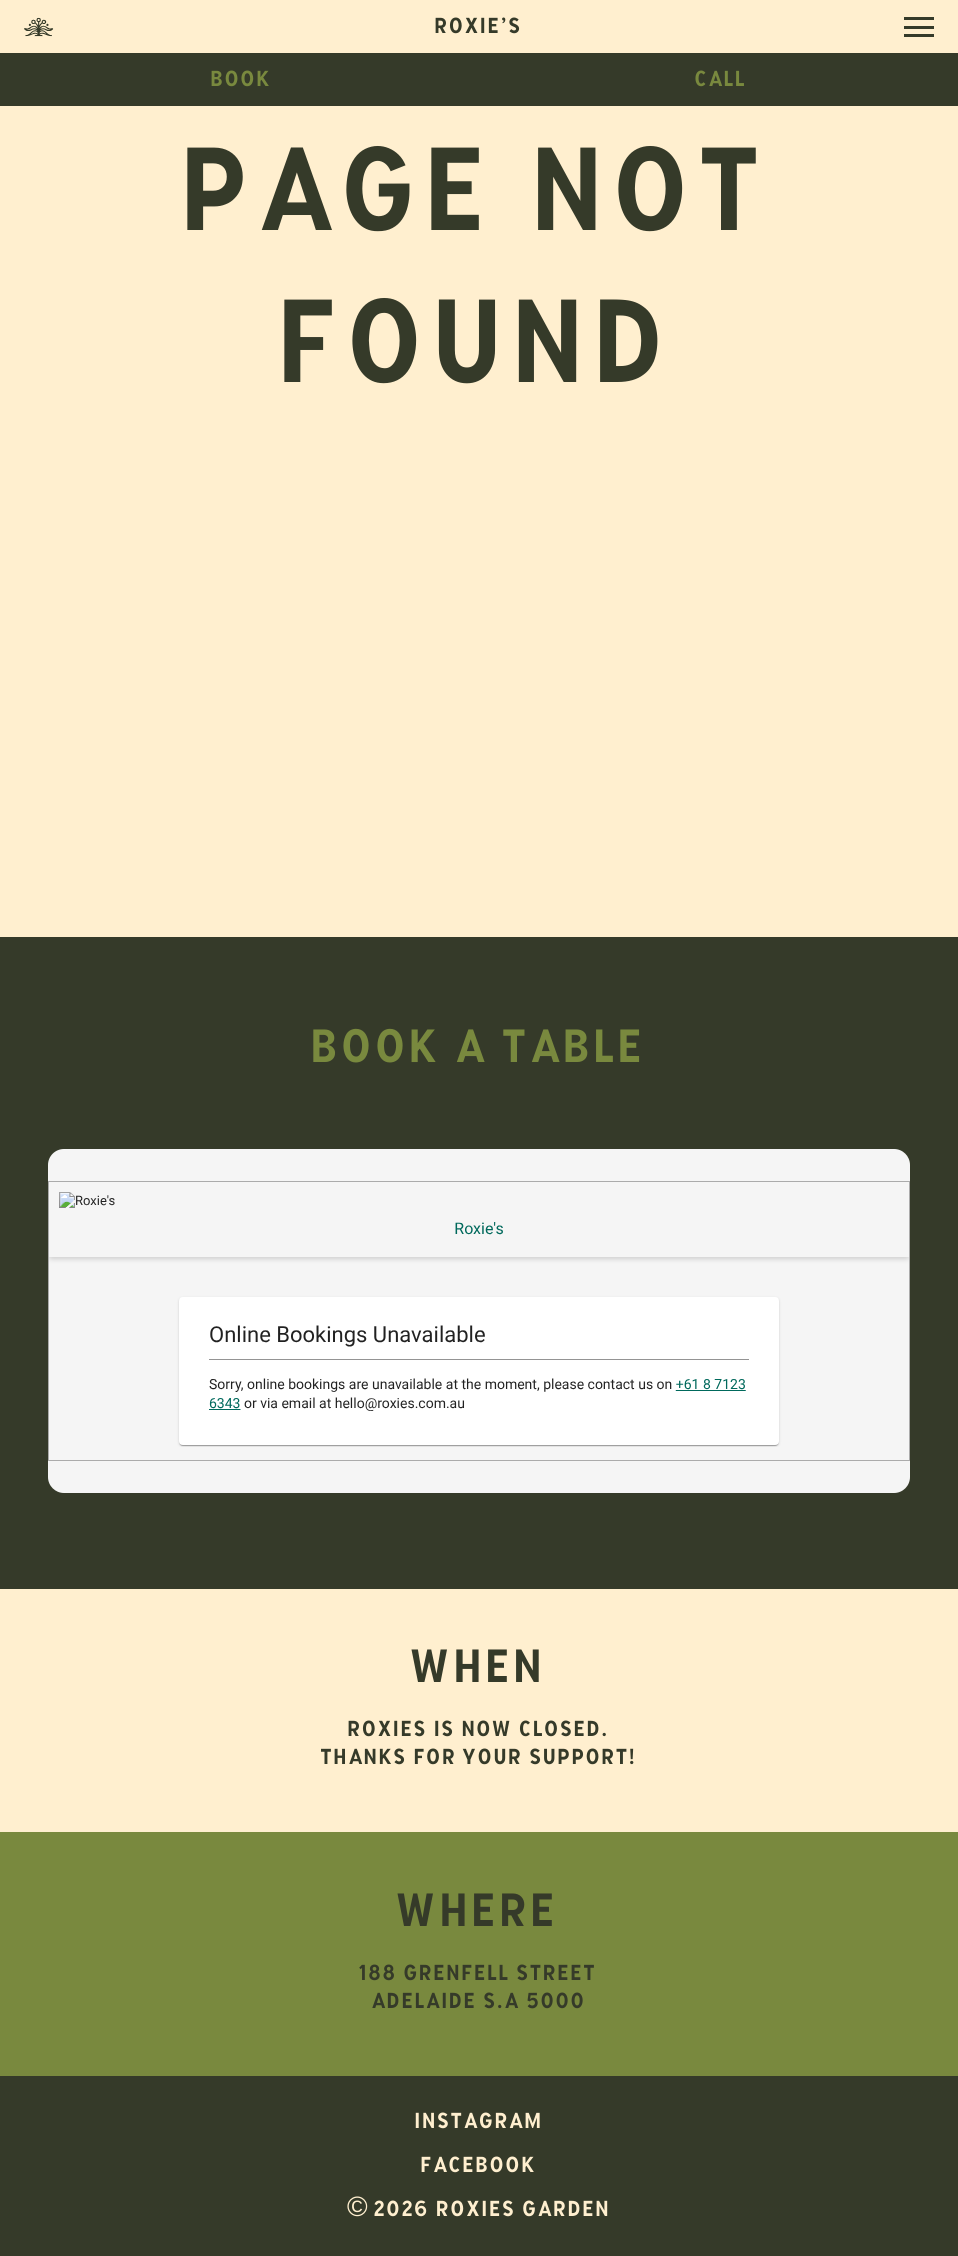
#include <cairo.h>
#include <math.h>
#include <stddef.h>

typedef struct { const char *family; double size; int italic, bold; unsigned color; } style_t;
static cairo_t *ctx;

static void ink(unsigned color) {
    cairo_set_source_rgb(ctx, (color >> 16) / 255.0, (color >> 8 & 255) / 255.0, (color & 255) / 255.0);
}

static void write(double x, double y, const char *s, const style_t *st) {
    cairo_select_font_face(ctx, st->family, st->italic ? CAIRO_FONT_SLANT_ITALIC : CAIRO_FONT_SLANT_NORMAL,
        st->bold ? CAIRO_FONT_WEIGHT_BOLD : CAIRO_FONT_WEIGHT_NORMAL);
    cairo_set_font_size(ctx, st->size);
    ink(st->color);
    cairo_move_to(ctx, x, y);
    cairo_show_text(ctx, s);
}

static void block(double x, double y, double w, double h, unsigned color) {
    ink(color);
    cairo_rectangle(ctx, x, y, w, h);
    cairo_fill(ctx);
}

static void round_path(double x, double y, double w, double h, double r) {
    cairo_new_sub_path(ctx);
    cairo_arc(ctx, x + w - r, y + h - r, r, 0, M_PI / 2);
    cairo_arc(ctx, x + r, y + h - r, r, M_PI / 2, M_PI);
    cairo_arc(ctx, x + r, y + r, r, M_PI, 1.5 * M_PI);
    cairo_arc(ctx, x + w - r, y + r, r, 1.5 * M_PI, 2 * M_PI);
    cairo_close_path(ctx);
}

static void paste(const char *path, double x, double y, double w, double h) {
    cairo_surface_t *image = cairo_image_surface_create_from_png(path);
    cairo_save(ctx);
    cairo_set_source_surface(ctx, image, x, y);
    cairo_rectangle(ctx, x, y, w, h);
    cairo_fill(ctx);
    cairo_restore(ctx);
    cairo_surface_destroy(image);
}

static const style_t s1 = {"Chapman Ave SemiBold", 28, 0, 0, 0x353a29};
static const style_t s2 = {"Chapman Ave SemiBold", 28, 0, 0, 0x79893e};
static const style_t s3 = {"Chapman Ave SemiBold", 152, 0, 0, 0x353a29};
static const style_t s4 = {"Chapman Ave SemiBold", 60, 0, 0, 0x79893e};
static const style_t s5 = {"Chapman Ave SemiBold", 60, 0, 0, 0x353a29};
static const style_t s6 = {"Chapman Ave SemiBold", 28, 0, 0, 0xffefcf};
static const style_t s7 = {"Liberation Sans", 28, 0, 0, 0xffefcf};

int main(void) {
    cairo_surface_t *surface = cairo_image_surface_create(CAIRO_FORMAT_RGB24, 958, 2256);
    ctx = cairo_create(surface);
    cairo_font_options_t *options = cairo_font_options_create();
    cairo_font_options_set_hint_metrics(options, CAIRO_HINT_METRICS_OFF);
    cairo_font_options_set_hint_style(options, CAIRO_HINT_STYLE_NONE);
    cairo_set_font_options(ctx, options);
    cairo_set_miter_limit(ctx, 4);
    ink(0xffefcf);
    cairo_paint(ctx);
    paste("pic1.png", 24, 17, 30, 20);
    write(435, 33, "roxie's", &s1);
    block(904, 26, 30, 3, 0x353a29);
    block(904, 17, 30, 3, 0x353a29);
    block(904, 34, 30, 3, 0x353a29);
    block(0, 53, 958, 53, 0x353a29);
    write(211, 86, "book", &s2);
    write(695, 86, "call", &s2);
    write(184, 230, "page not", &s3);
    write(281, 382, "found", &s3);
    block(0, 937, 958, 652, 0x353a29);
    write(312, 1062, "book a table", &s4);
    ink(0xf5f5f5);
    round_path(48, 1149, 862, 344, 16);
    cairo_fill(ctx);
    cairo_rectangle(ctx, 48.5, 1181.5, 861, 279);
    ink(0xababab);
    cairo_set_line_width(ctx, 1);
    cairo_stroke(ctx);
    paste("pic2.png", 49, 1192, 860, 255);
    write(412, 1682, "when", &s5);
    write(348, 1736, "roxies is now closed.", &s1);
    write(321, 1764, "thanks for your support!", &s1);
    block(0, 1832, 958, 244, 0x79893e);
    write(398, 1926, "where", &s5);
    write(360, 1980, "188 grenfell street", &s1);
    write(372, 2008, "adelaide s.a 5000", &s1);
    block(0, 2076, 958, 180, 0x353a29);
    write(415, 2128, "instagram", &s6);
    write(421, 2172, "facebook", &s6);
    write(347, 2216, "©", &s7);
    write(374, 2216, "2026 roxies garden", &s6);
    cairo_surface_write_to_png(surface, "screenshot.png");
    cairo_font_options_destroy(options);
    cairo_destroy(ctx);
    cairo_surface_destroy(surface);
    return 0;
}
